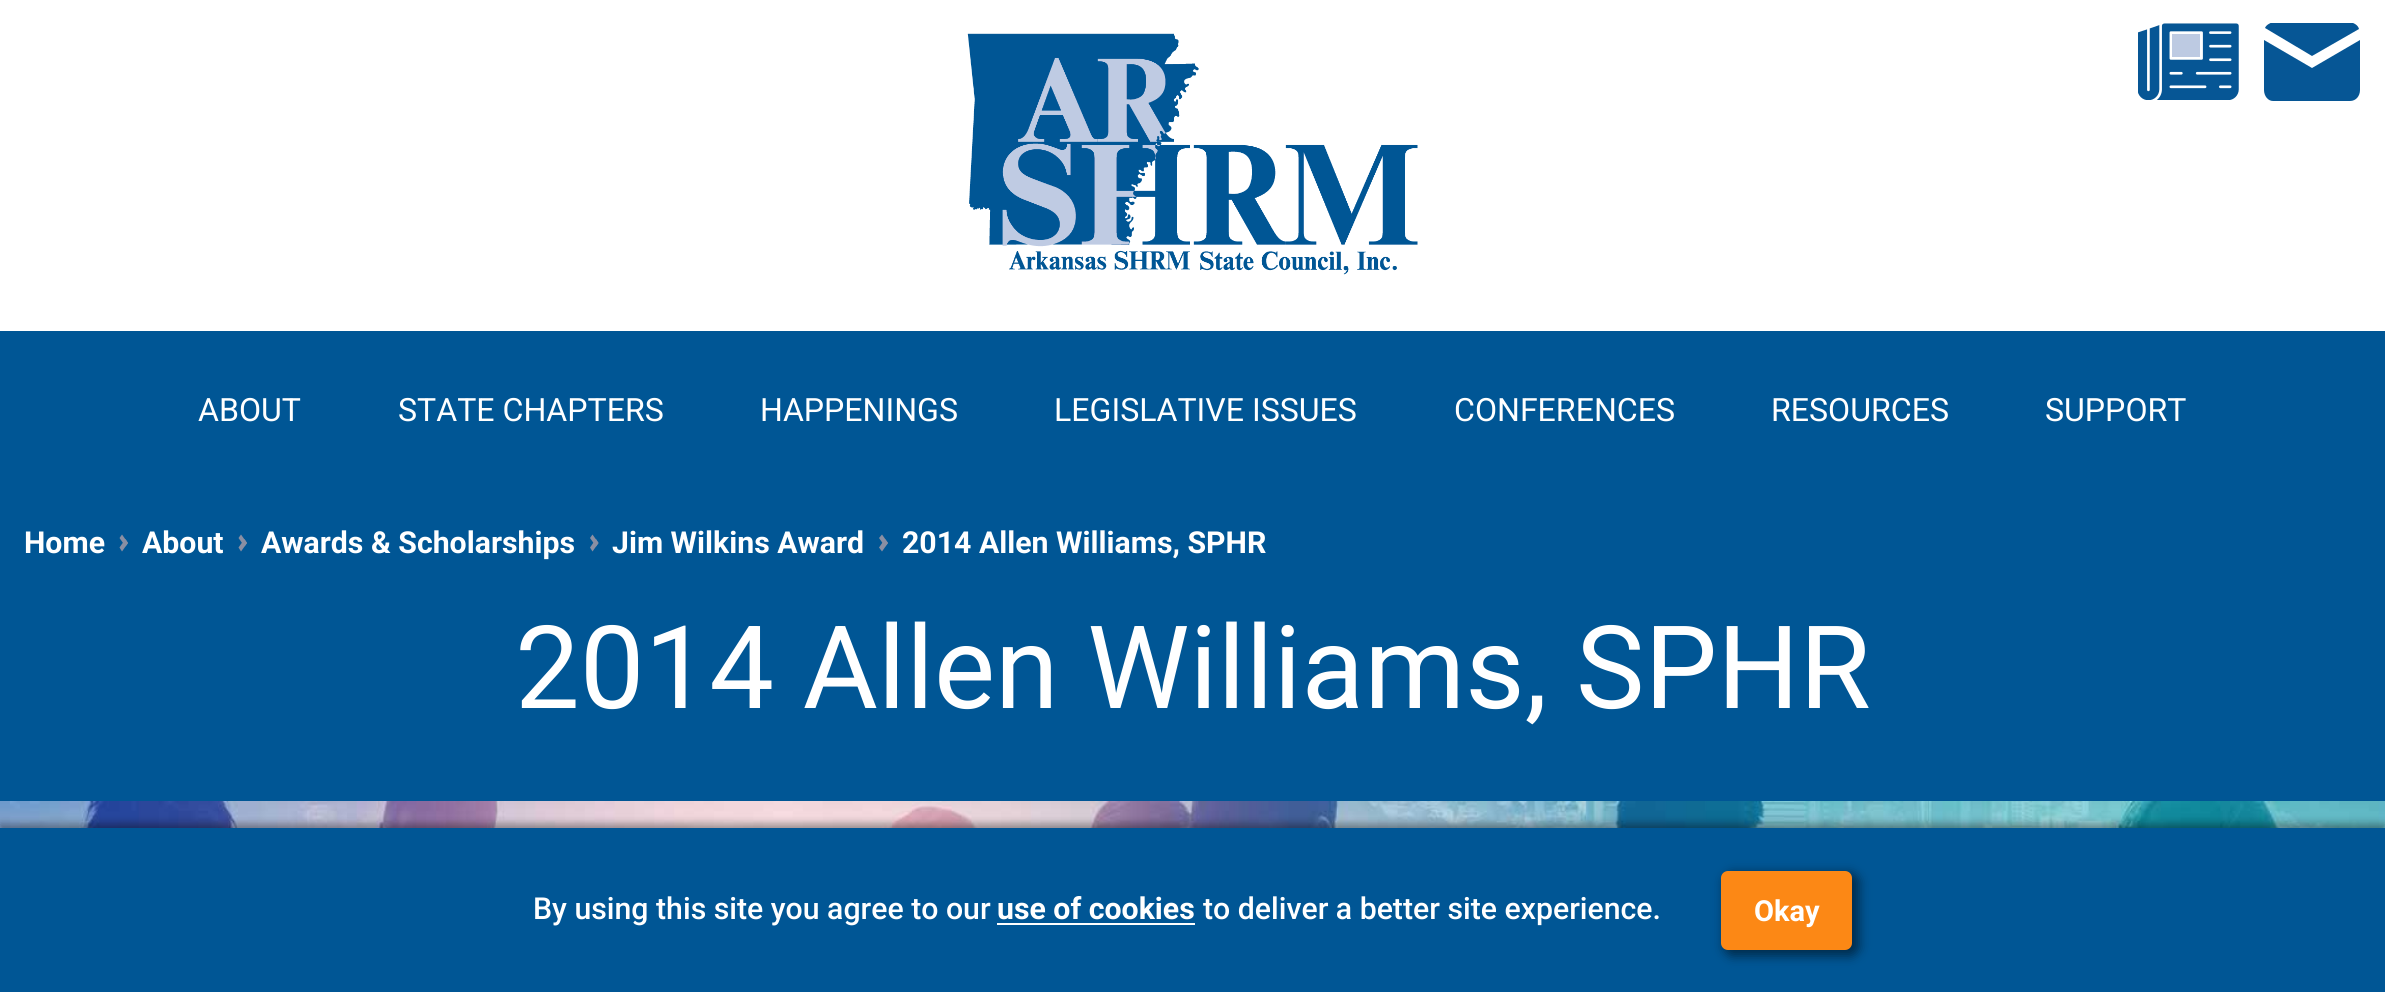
#include <cairo.h>
#include <math.h>
#include <stddef.h>

typedef struct { const char *family; double size; int italic, bold; unsigned color; } style_t;
static cairo_t *ctx;

static void ink(unsigned color) {
    cairo_set_source_rgb(ctx, (color >> 16) / 255.0, (color >> 8 & 255) / 255.0, (color & 255) / 255.0);
}

static void write(double x, double y, const char *s, const style_t *st) {
    cairo_select_font_face(ctx, st->family, st->italic ? CAIRO_FONT_SLANT_ITALIC : CAIRO_FONT_SLANT_NORMAL,
        st->bold ? CAIRO_FONT_WEIGHT_BOLD : CAIRO_FONT_WEIGHT_NORMAL);
    cairo_set_font_size(ctx, st->size);
    ink(st->color);
    cairo_move_to(ctx, x, y);
    cairo_show_text(ctx, s);
}

static void block(double x, double y, double w, double h, unsigned color) {
    ink(color);
    cairo_rectangle(ctx, x, y, w, h);
    cairo_fill(ctx);
}

static void round_path(double x, double y, double w, double h, double r) {
    cairo_new_sub_path(ctx);
    cairo_arc(ctx, x + w - r, y + h - r, r, 0, M_PI / 2);
    cairo_arc(ctx, x + r, y + h - r, r, M_PI / 2, M_PI);
    cairo_arc(ctx, x + r, y + r, r, M_PI, 1.5 * M_PI);
    cairo_arc(ctx, x + w - r, y + r, r, 1.5 * M_PI, 2 * M_PI);
    cairo_close_path(ctx);
}

static void blur_box(double x, double y, double w, double h, double r, double blur, double alpha) {
    cairo_push_group_with_content(ctx, CAIRO_CONTENT_ALPHA);
    cairo_set_operator(ctx, CAIRO_OPERATOR_SOURCE);
    for (int i = 15; i >= -15 && fmin(w, h) + blur * i / 3 > 0; i -= 2) {
        double e = blur * i / 6;
        cairo_set_source_rgba(ctx, 0, 0, 0, alpha * erfc((i - 1) / 8.5) / 2);
        round_path(x - e, y - e, w + 2 * e, h + 2 * e, fmax(0, fmin(r + e + blur * .6, fmin(w, h) / 2 + e)));
        cairo_fill(ctx);
    }
    cairo_pattern_t *soft = cairo_pop_group(ctx);
    cairo_mask(ctx, soft);
    cairo_pattern_destroy(soft);
}

static void paste(const char *path, double x, double y, double w, double h) {
    cairo_surface_t *image = cairo_image_surface_create_from_png(path);
    cairo_save(ctx);
    cairo_set_source_surface(ctx, image, x, y);
    cairo_rectangle(ctx, x, y, w, h);
    cairo_fill(ctx);
    cairo_restore(ctx);
    cairo_surface_destroy(image);
}

static const style_t s1 = {"Roboto", 32.1, 0, 0, 0xffffff};
static const style_t s2 = {"Roboto", 30.25, 0, 1, 0xffffff};
static const style_t s3 = {"Roboto", 115.25, 0, 0, 0xffffff};
static const style_t s4 = {"Roboto Medium", 30.25, 0, 0, 0xffffff};
static const style_t s5 = {"Roboto", 29, 0, 1, 0xffffff};

int main(void) {
    cairo_surface_t *surface = cairo_image_surface_create(CAIRO_FORMAT_RGB24, 2385, 992);
    ctx = cairo_create(surface);
    cairo_font_options_t *options = cairo_font_options_create();
    cairo_font_options_set_hint_metrics(options, CAIRO_HINT_METRICS_OFF);
    cairo_font_options_set_hint_style(options, CAIRO_HINT_STYLE_NONE);
    cairo_set_font_options(ctx, options);
    cairo_set_miter_limit(ctx, 4);
    ink(0xffffff);
    cairo_paint(ctx);
    paste("pic1.png", 967, 33, 451, 242);
    paste("pic2.png", 2138, 23, 101, 77);
    cairo_save(ctx);
    cairo_rectangle(ctx, 2264, 23, 99, 78);
    cairo_clip(ctx);
    ink(0x065695);
    cairo_new_path(ctx);
    cairo_move_to(ctx, 2312, 56);
    cairo_line_to(ctx, 2265, 28);
    cairo_curve_to(ctx, 2266, 25, 2270, 23, 2273, 22);
    cairo_line_to(ctx, 2350, 22);
    cairo_curve_to(ctx, 2354, 23, 2358, 25, 2359, 29);
    cairo_close_path(ctx);
    cairo_fill(ctx);
    cairo_restore(ctx);
    ink(0x065695);
    cairo_new_path(ctx);
    cairo_move_to(ctx, 2360, 40);
    cairo_line_to(ctx, 2360, 90);
    cairo_curve_to(ctx, 2360, 96, 2356, 101, 2350, 101);
    cairo_line_to(ctx, 2273, 101);
    cairo_curve_to(ctx, 2268, 101, 2264, 96, 2264, 90);
    cairo_line_to(ctx, 2264, 40);
    cairo_line_to(ctx, 2312, 68);
    cairo_close_path(ctx);
    cairo_fill(ctx);
    block(0, 331, 2385, 470, 0x005695);
    write(198, 421, "ABOUT", &s1);
    write(398, 421, "STATE CHAPTERS", &s1);
    write(760, 421, "HAPPENINGS", &s1);
    write(1054, 421, "LEGISLATIVE ISSUES", &s1);
    write(1454, 421, "CONFERENCES", &s1);
    write(1771, 421, "RESOURCES", &s1);
    write(2045, 421, "SUPPORT", &s1);
    write(24, 553, "Home", &s2);
    ink(0x8a8fa3);
    cairo_new_path(ctx);
    cairo_move_to(ctx, 119.5, 538);
    cairo_line_to(ctx, 122, 534.5);
    cairo_line_to(ctx, 128, 543);
    cairo_line_to(ctx, 125.5, 546.5);
    cairo_close_path(ctx);
    cairo_fill(ctx);
    cairo_new_path(ctx);
    cairo_move_to(ctx, 119.5, 547.5);
    cairo_line_to(ctx, 125.5, 539);
    cairo_line_to(ctx, 128, 543);
    cairo_line_to(ctx, 122, 551.5);
    cairo_close_path(ctx);
    cairo_fill(ctx);
    write(142, 553, "About", &s2);
    ink(0x8a8fa3);
    cairo_new_path(ctx);
    cairo_move_to(ctx, 238.5, 538);
    cairo_line_to(ctx, 241, 534.5);
    cairo_line_to(ctx, 247, 543);
    cairo_line_to(ctx, 244.5, 546.5);
    cairo_close_path(ctx);
    cairo_fill(ctx);
    cairo_new_path(ctx);
    cairo_move_to(ctx, 238.5, 547.5);
    cairo_line_to(ctx, 244.5, 539);
    cairo_line_to(ctx, 247, 543);
    cairo_line_to(ctx, 241, 551.5);
    cairo_close_path(ctx);
    cairo_fill(ctx);
    write(261, 553, "Awards & Scholarships", &s2);
    ink(0x8a8fa3);
    cairo_new_path(ctx);
    cairo_move_to(ctx, 590, 538);
    cairo_line_to(ctx, 592.5, 534.5);
    cairo_line_to(ctx, 598.5, 543);
    cairo_line_to(ctx, 596, 546.5);
    cairo_close_path(ctx);
    cairo_fill(ctx);
    cairo_new_path(ctx);
    cairo_move_to(ctx, 590, 547.5);
    cairo_line_to(ctx, 596, 539);
    cairo_line_to(ctx, 598.5, 543);
    cairo_line_to(ctx, 592.5, 551.5);
    cairo_close_path(ctx);
    cairo_fill(ctx);
    write(612, 553, "Jim Wilkins Award", &s2);
    ink(0x8a8fa3);
    cairo_new_path(ctx);
    cairo_move_to(ctx, 879, 538);
    cairo_line_to(ctx, 882, 534.5);
    cairo_line_to(ctx, 888, 543);
    cairo_line_to(ctx, 885, 546.5);
    cairo_close_path(ctx);
    cairo_fill(ctx);
    cairo_new_path(ctx);
    cairo_move_to(ctx, 879, 547.5);
    cairo_line_to(ctx, 885, 539);
    cairo_line_to(ctx, 888, 543);
    cairo_line_to(ctx, 882, 551.5);
    cairo_close_path(ctx);
    cairo_fill(ctx);
    write(902, 553, "2014 Allen Williams, SPHR", &s2);
    write(515, 708, "2014 Allen Williams, SPHR", &s3);
    paste("pic3.png", 0, 801, 2385, 27);
    ink(0x000000);
    blur_box(0, 824, 2385, 164, 0, 4.5, 0.4);
    block(0, 828, 2385, 164, 0x005695);
    write(533, 919, "By using this site you agree to our", &s4);
    write(997, 919, "use of cookies", &s2);
    block(997, 923, 198, 2, 0xffffff);
    write(1203, 919, "to deliver a better site experience.", &s4);
    ink(0x000000);
    blur_box(1724, 873, 135, 83, 9, 5.5, 0.5);
    ink(0xfc8815);
    round_path(1723.5, 873.5, 126, 74, 4.5);
    cairo_fill_preserve(ctx);
    cairo_set_line_width(ctx, 5);
    cairo_stroke(ctx);
    write(1754, 921, "Okay", &s5);
    cairo_surface_write_to_png(surface, "screenshot.png");
    cairo_font_options_destroy(options);
    cairo_destroy(ctx);
    cairo_surface_destroy(surface);
    return 0;
}
